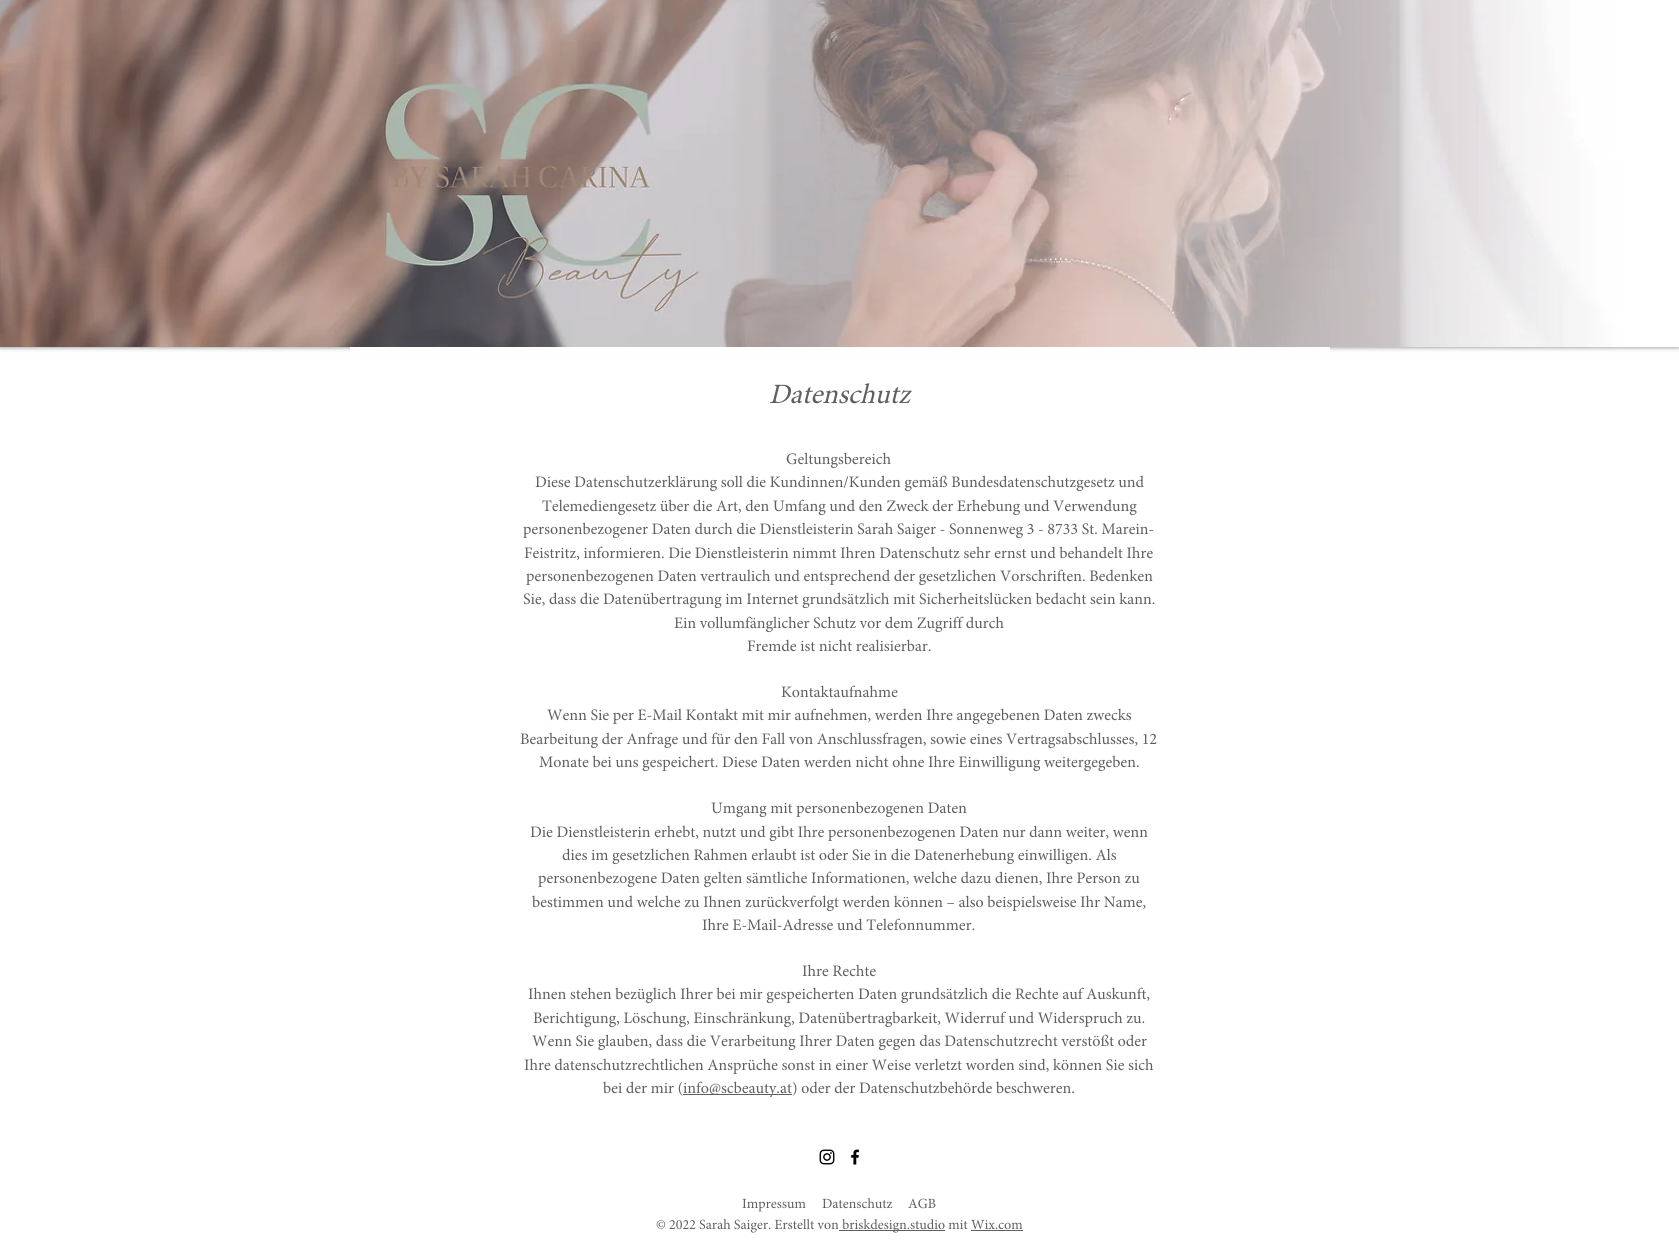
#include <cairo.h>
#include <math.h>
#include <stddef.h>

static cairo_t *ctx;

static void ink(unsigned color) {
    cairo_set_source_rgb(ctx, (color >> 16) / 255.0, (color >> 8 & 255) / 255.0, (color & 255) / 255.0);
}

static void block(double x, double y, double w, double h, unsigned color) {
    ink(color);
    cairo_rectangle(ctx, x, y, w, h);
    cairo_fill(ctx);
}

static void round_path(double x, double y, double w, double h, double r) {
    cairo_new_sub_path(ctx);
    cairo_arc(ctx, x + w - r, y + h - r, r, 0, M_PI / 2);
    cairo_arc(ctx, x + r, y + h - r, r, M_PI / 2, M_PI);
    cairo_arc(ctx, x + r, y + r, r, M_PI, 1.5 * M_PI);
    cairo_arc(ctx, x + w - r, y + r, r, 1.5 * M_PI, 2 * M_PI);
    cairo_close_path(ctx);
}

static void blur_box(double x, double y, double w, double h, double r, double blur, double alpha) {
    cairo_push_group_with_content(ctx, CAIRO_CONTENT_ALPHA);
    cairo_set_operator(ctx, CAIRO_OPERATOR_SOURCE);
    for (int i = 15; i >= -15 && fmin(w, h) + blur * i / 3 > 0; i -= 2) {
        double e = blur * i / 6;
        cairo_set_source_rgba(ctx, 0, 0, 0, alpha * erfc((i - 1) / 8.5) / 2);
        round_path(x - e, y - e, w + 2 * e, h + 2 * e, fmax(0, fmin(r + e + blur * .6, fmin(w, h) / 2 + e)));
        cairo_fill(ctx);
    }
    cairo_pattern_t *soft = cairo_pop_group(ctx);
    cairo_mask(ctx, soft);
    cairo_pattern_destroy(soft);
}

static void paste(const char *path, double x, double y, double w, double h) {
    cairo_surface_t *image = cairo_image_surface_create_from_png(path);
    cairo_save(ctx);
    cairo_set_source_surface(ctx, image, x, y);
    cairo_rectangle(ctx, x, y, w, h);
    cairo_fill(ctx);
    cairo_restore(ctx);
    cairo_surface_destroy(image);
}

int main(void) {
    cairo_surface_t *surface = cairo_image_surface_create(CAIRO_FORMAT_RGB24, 1679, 1252);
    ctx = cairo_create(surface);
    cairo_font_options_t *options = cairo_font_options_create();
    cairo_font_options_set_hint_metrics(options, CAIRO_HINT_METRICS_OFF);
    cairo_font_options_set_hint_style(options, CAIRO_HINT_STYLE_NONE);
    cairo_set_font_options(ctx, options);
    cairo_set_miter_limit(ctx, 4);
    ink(0xffffff);
    cairo_paint(ctx);
    ink(0x000000);
    blur_box(0, -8, 1679, 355, 0, 2.5, 0.5);
    paste("pic1.png", 0, 0, 1679, 347);
    block(350, 347, 980, 5, 0xffffff);
    paste("pic2.png", 770, 383, 142, 21);
    paste("pic3.png", 786, 452, 105, 17);
    paste("pic4.png", 535, 475, 609, 17);
    paste("pic5.png", 542, 499, 595, 17);
    paste("pic6.png", 523, 522, 631, 17);
    paste("pic7.png", 524, 546, 629, 14);
    paste("pic8.png", 526, 569, 627, 17);
    paste("pic9.png", 523, 592, 632, 17);
    paste("pic10.png", 674, 616, 330, 17);
    paste("pic11.png", 747, 639, 184, 13);
    paste("pic12.png", 781, 685, 117, 13);
    paste("pic13.png", 547, 708, 584, 17);
    paste("pic14.png", 520, 732, 637, 17);
    paste("pic15.png", 539, 755, 600, 17);
    paste("pic16.png", 711, 801, 256, 17);
    paste("pic17.png", 530, 825, 618, 17);
    paste("pic18.png", 562, 848, 554, 17);
    paste("pic19.png", 538, 871, 602, 17);
    paste("pic20.png", 532, 895, 614, 17);
    paste("pic21.png", 702, 918, 273, 13);
    paste("pic22.png", 802, 964, 74, 13);
    paste("pic23.png", 528, 987, 622, 17);
    paste("pic24.png", 533, 1011, 612, 17);
    paste("pic25.png", 532, 1034, 615, 17);
    paste("pic26.png", 524, 1058, 630, 16);
    paste("pic27.png", 603, 1081, 80, 15);
    block(683, 1094, 109, 1, 0x605e5e);
    paste("pic28.png", 683, 1081, 109, 17);
    paste("pic29.png", 792, 1081, 282, 15);
    paste("pic30.png", 819, 1149, 16, 16);
    paste("pic31.png", 851, 1149, 9, 16);
    paste("pic32.png", 742, 1198, 64, 14);
    paste("pic33.png", 822, 1198, 71, 11);
    paste("pic34.png", 908, 1198, 28, 11);
    paste("pic35.png", 656, 1219, 183, 14);
    block(839, 1230, 106, 1, 0x605e5e);
    paste("pic36.png", 842, 1219, 103, 14);
    paste("pic37.png", 948, 1220, 20, 10);
    paste("pic38.png", 971, 1219, 52, 11);
    block(971, 1230, 52, 1, 0x605e5e);
    cairo_surface_write_to_png(surface, "screenshot.png");
    cairo_font_options_destroy(options);
    cairo_destroy(ctx);
    cairo_surface_destroy(surface);
    return 0;
}
